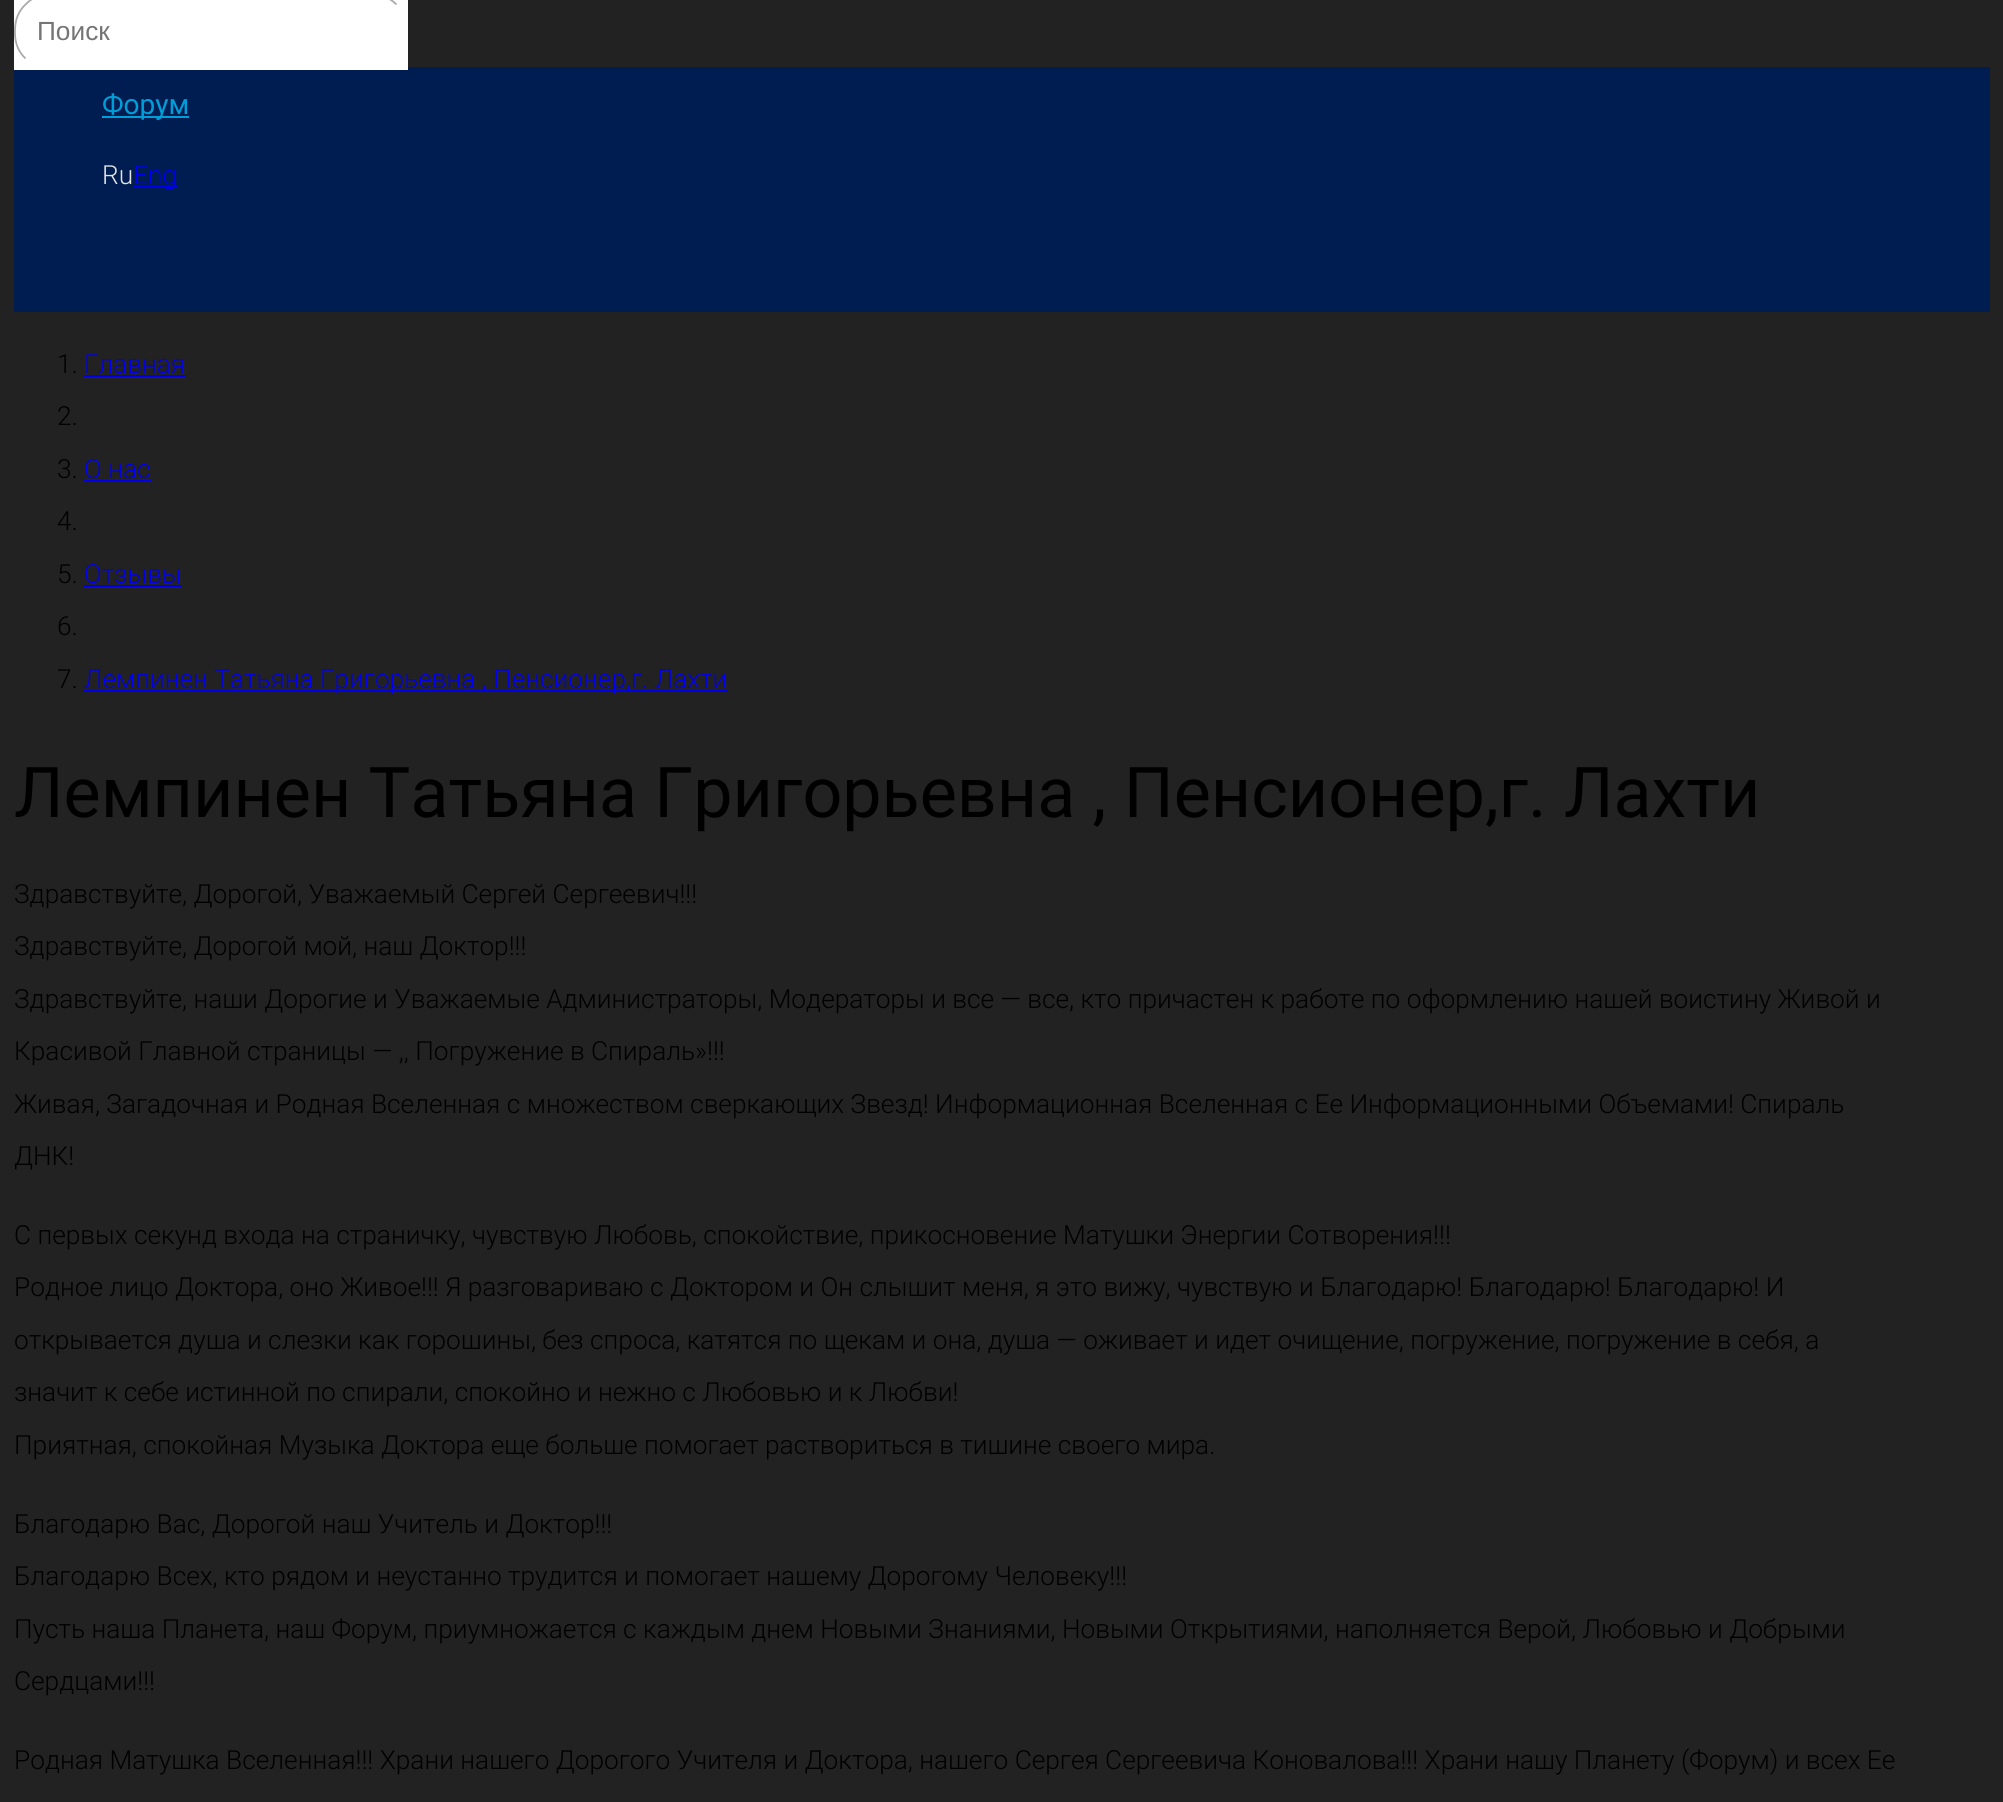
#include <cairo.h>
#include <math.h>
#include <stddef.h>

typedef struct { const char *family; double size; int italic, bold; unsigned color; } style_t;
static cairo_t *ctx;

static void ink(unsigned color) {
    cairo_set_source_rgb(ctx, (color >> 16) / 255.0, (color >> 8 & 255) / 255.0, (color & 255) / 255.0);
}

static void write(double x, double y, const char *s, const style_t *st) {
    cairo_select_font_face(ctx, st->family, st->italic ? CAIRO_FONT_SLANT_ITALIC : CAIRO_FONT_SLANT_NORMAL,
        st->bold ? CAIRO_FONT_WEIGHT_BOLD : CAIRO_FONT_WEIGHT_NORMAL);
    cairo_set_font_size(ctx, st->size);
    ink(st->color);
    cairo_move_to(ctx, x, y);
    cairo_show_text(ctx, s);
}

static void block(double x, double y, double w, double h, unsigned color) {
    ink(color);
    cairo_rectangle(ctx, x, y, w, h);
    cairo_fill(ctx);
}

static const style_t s1 = {"Liberation Sans", 26.25, 0, 0, 0x757575};
static const style_t s2 = {"Roboto", 28, 0, 0, 0x009ed9};
static const style_t s3 = {"Roboto Light", 26.25, 0, 0, 0xe5e5e5};
static const style_t s4 = {"Roboto Light", 26.25, 0, 0, 0x0000ee};
static const style_t s5 = {"Roboto Light", 26.25, 0, 0, 0x000000};
static const style_t s6 = {"Roboto", 70, 0, 0, 0x000000};

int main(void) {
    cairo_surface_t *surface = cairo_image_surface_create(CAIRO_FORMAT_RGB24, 2003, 1802);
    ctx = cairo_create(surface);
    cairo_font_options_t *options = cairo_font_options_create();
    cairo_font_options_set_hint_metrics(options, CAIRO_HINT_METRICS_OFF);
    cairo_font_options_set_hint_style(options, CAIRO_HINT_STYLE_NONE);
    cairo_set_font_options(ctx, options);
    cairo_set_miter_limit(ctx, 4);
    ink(0x222222);
    cairo_paint(ctx);
    block(14, 67, 1976, 245, 0x001d51);
    block(14, 0, 394, 70, 0xffffff);
    cairo_new_path(ctx);
    cairo_move_to(ctx, 25.5, 58.5);
    cairo_curve_to(ctx, 18.5, 52, 15, 43, 15, 33.5);
    cairo_line_to(ctx, 15, 30);
    cairo_curve_to(ctx, 15, 20, 18.5, 11, 25.5, 4.5);
    cairo_curve_to(ctx, 32, -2.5, 41, -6, 50.5, -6);
    cairo_line_to(ctx, 371, -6);
    cairo_curve_to(ctx, 380.5, -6, 389.5, -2.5, 396.5, 4.5);
    ink(0xaaaaaa);
    cairo_set_line_width(ctx, 1.8);
    cairo_stroke(ctx);
    write(37, 40, "Поиск", &s1);
    block(102, 116, 87, 2, 0x009ed9);
    write(102, 114, "Форум", &s2);
    write(102, 184, "Ru", &s3);
    block(133, 186, 44, 2, 0x0000ee);
    write(133, 184, "Eng", &s4);
    write(57, 373, "1.", &s5);
    write(84, 373, "Главная", &s4);
    block(84, 375, 102, 2, 0x0000ee);
    write(57, 425, "2.", &s5);
    write(57, 478, "3.", &s5);
    write(84, 478, "О нас", &s4);
    block(84, 480, 67, 2, 0x0000ee);
    write(57, 530, "4.", &s5);
    write(57, 583, "5.", &s5);
    write(84, 583, "Отзывы", &s4);
    block(84, 585, 98, 2, 0x0000ee);
    write(57, 635, "6.", &s5);
    write(57, 688, "7.", &s5);
    block(84, 690, 644, 2, 0x0000ee);
    write(84, 688, "Лемпинен Татьяна Григорьевна , Пенсионер,г. Лахти", &s4);
    write(14, 817, "Лемпинен Татьяна Григорьевна , Пенсионер,г. Лахти", &s6);
    write(14, 903, "Здравствуйте, Дорогой, Уважаемый Сергей Сергеевич!!!", &s5);
    write(14, 955, "Здравствуйте, Дорогой мой, наш Доктор!!!", &s5);
    write(14, 1008, "Здравствуйте, наши Дорогие и Уважаемые Администраторы, Модераторы и все — все, кто причастен к работе по оформлению нашей воистину Живой и", &s5);
    write(14, 1060, "Красивой Главной страницы — ,, Погружение в Спираль»!!!", &s5);
    write(14, 1113, "Живая, Загадочная и Родная Вселенная с множеством сверкающих Звезд! Информационная Вселенная с Ее Информационными Объемами! Спираль", &s5);
    write(14, 1165, "ДНК!", &s5);
    write(14, 1244, "С первых секунд входа на страничку, чувствую Любовь, спокойствие, прикосновение Матушки Энергии Сотворения!!!", &s5);
    write(14, 1296, "Родное лицо Доктора, оно Живое!!! Я разговариваю с Доктором и Он слышит меня, я это вижу, чувствую и Благодарю! Благодарю! Благодарю! И", &s5);
    write(14, 1349, "открывается душа и слезки как горошины, без спроса, катятся по щекам и она, душа — оживает и идет очищение, погружение, погружение в себя, а", &s5);
    write(14, 1401, "значит к себе истинной по спирали, спокойно и нежно с Любовью и к Любви!", &s5);
    write(14, 1454, "Приятная, спокойная Музыка Доктора еще больше помогает раствориться в тишине своего мира.", &s5);
    write(14, 1533, "Благодарю Вас, Дорогой наш Учитель и Доктор!!!", &s5);
    write(14, 1585, "Благодарю Всех, кто рядом и неустанно трудится и помогает нашему Дорогому Человеку!!!", &s5);
    write(14, 1638, "Пусть наша Планета, наш Форум, приумножается с каждым днем Новыми Знаниями, Новыми Открытиями, наполняется Верой, Любовью и Добрыми", &s5);
    write(14, 1690, "Сердцами!!!", &s5);
    write(14, 1769, "Родная Матушка Вселенная!!! Храни нашего Дорогого Учителя и Доктора, нашего Сергея Сергеевича Коновалова!!! Храни нашу Планету (Форум) и всех Ее", &s5);
    cairo_surface_write_to_png(surface, "screenshot.png");
    cairo_font_options_destroy(options);
    cairo_destroy(ctx);
    cairo_surface_destroy(surface);
    return 0;
}
